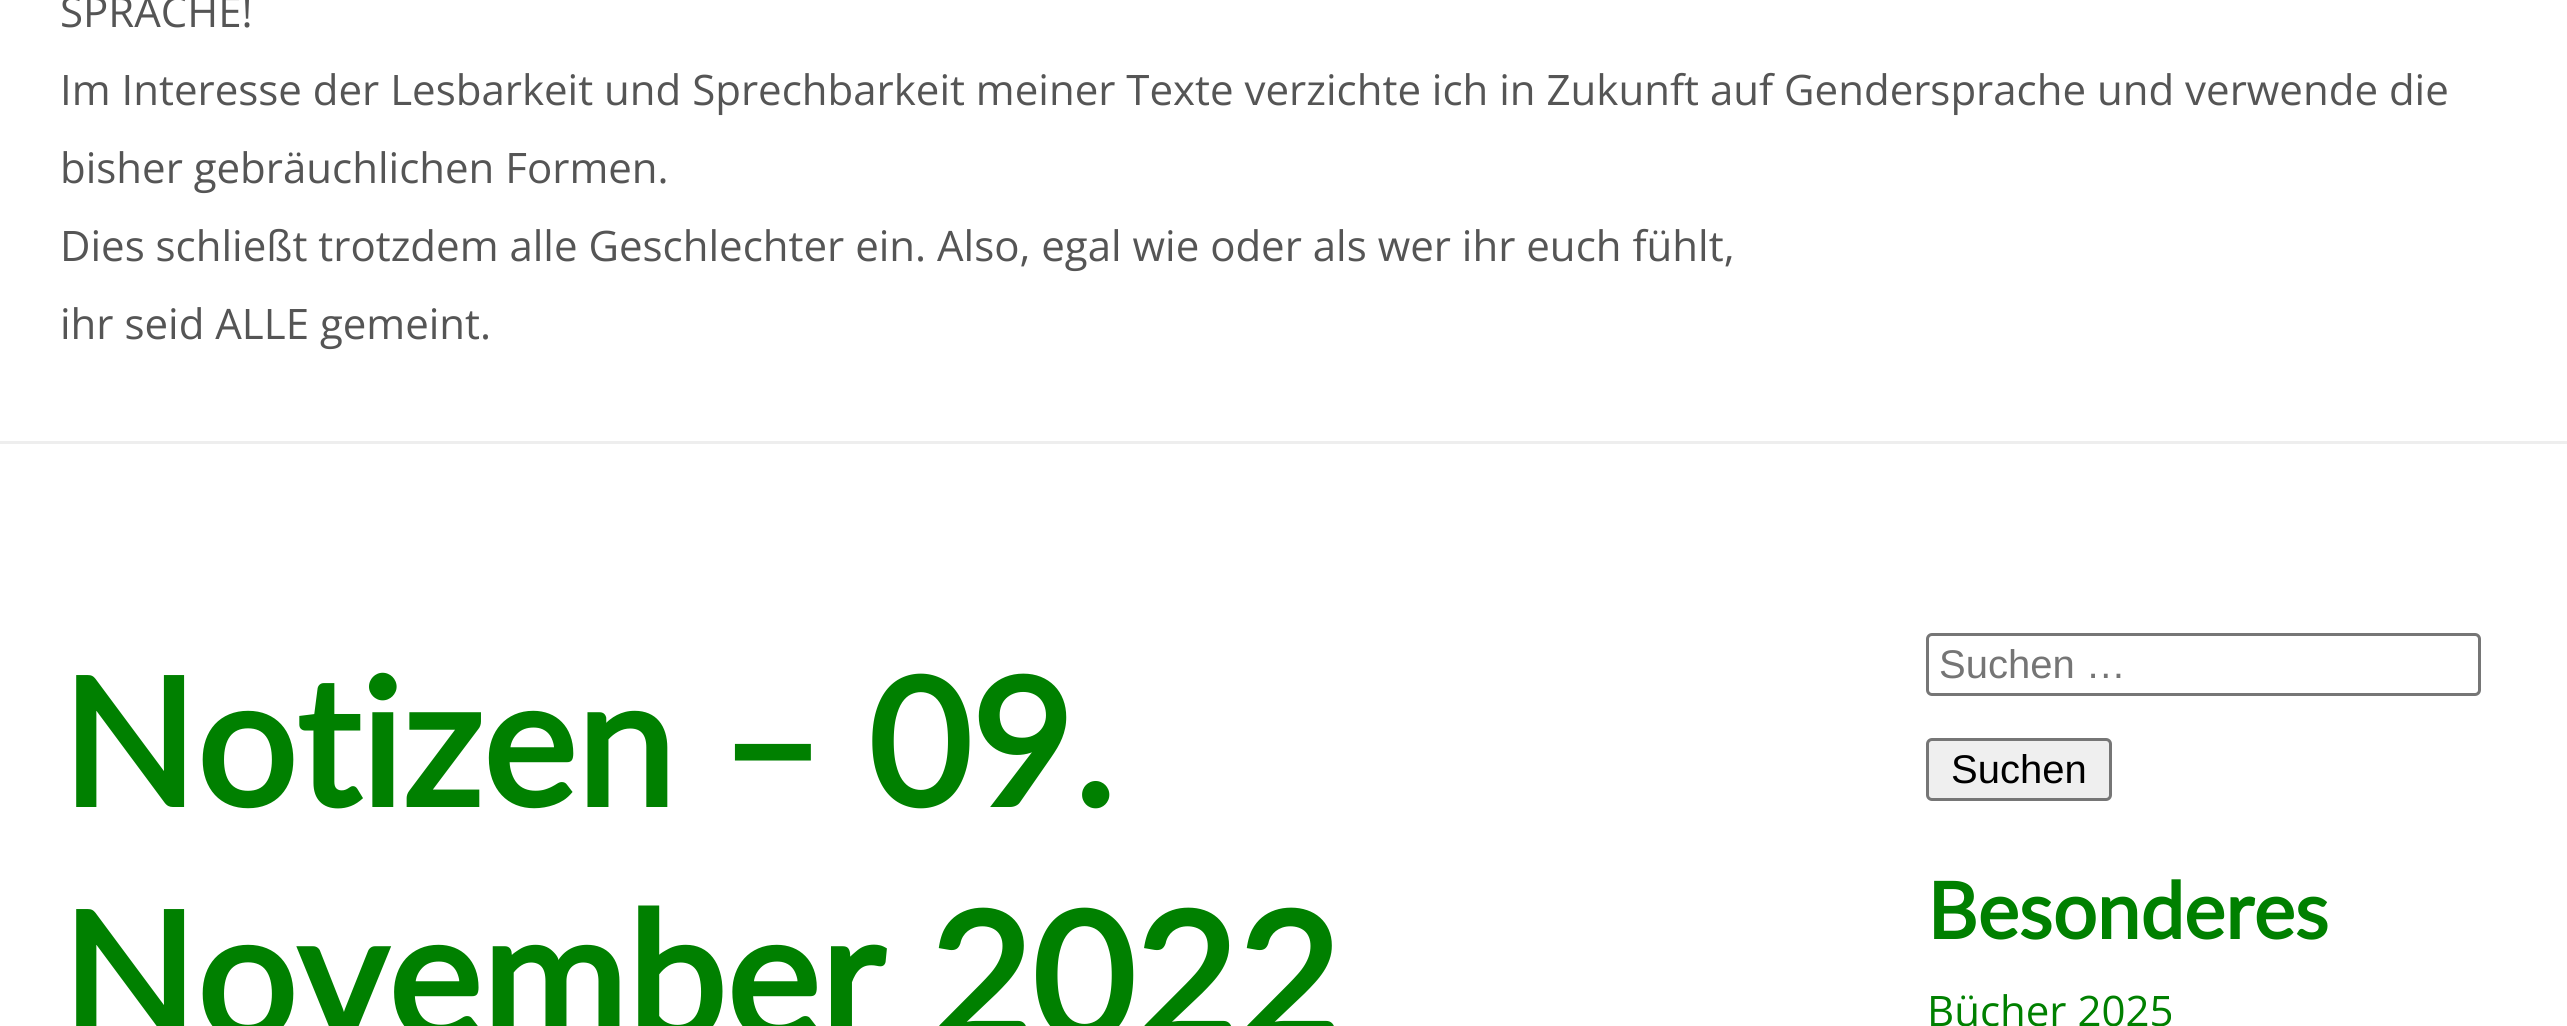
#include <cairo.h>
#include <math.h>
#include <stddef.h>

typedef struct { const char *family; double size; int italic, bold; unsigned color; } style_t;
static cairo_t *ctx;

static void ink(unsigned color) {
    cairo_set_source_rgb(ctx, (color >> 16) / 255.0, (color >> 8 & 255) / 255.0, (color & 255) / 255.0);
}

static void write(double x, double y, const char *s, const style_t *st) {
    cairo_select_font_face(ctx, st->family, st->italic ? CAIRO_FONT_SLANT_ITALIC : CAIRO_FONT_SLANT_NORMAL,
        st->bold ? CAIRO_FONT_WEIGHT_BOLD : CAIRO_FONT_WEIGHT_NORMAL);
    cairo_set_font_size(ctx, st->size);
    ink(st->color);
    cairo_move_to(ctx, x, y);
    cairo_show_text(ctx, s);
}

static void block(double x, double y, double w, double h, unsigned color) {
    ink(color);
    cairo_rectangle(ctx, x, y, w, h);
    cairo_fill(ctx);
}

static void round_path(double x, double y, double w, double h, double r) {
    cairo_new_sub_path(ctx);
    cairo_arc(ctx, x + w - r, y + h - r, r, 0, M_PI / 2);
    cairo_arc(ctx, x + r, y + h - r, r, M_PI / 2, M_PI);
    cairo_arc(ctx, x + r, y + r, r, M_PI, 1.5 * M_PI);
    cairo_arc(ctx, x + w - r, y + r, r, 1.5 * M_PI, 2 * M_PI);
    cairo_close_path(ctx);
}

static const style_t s1 = {"Open Sans", 42, 0, 0, 0x555555};
static const style_t s2 = {"Lato", 177, 0, 1, 0x008000};
static const style_t s3 = {"Liberation Sans", 40, 0, 0, 0x757575};
static const style_t s4 = {"Liberation Sans", 40, 0, 0, 0x000000};
static const style_t s5 = {"Lato", 78, 0, 1, 0x008000};
static const style_t s6 = {"Open Sans", 42, 0, 0, 0x008000};

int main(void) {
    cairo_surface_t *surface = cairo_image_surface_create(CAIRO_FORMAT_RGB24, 2567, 1026);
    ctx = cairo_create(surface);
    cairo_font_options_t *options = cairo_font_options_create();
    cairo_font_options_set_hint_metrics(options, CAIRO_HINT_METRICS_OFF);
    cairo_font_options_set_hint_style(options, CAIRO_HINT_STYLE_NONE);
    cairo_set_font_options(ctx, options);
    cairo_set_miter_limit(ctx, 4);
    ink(0xffffff);
    cairo_paint(ctx);
    block(0, 441, 2567, 3, 0xeeeeee);
    write(60, 27, "SPRACHE!", &s1);
    write(60, 105, "Im Interesse der Lesbarkeit und Sprechbarkeit meiner Texte verzichte ich in Zukunft auf Gendersprache und verwende die", &s1);
    write(60, 183, "bisher gebräuchlichen Formen.", &s1);
    write(60, 261, "Dies schließt trotzdem alle Geschlechter ein. Also, egal wie oder als wer ihr euch fühlt,", &s1);
    write(60, 339, "ihr seid ALLE gemeint.", &s1);
    write(60, 807, "Notizen – 09.", &s2);
    write(60, 1041, "November 2022", &s2);
    round_path(1927.5, 634.5, 552, 60, 4.5);
    ink(0x767676);
    cairo_set_line_width(ctx, 3);
    cairo_stroke(ctx);
    write(1939, 678, "Suchen …", &s3);
    ink(0xefefef);
    round_path(1927.5, 739.5, 183, 60, 4.5);
    cairo_fill_preserve(ctx);
    ink(0x767676);
    cairo_stroke(ctx);
    write(1951, 783, "Suchen", &s4);
    write(1927, 939, "Besonderes", &s5);
    write(1927, 1026, "Bücher 2025", &s6);
    cairo_surface_write_to_png(surface, "screenshot.png");
    cairo_font_options_destroy(options);
    cairo_destroy(ctx);
    cairo_surface_destroy(surface);
    return 0;
}
